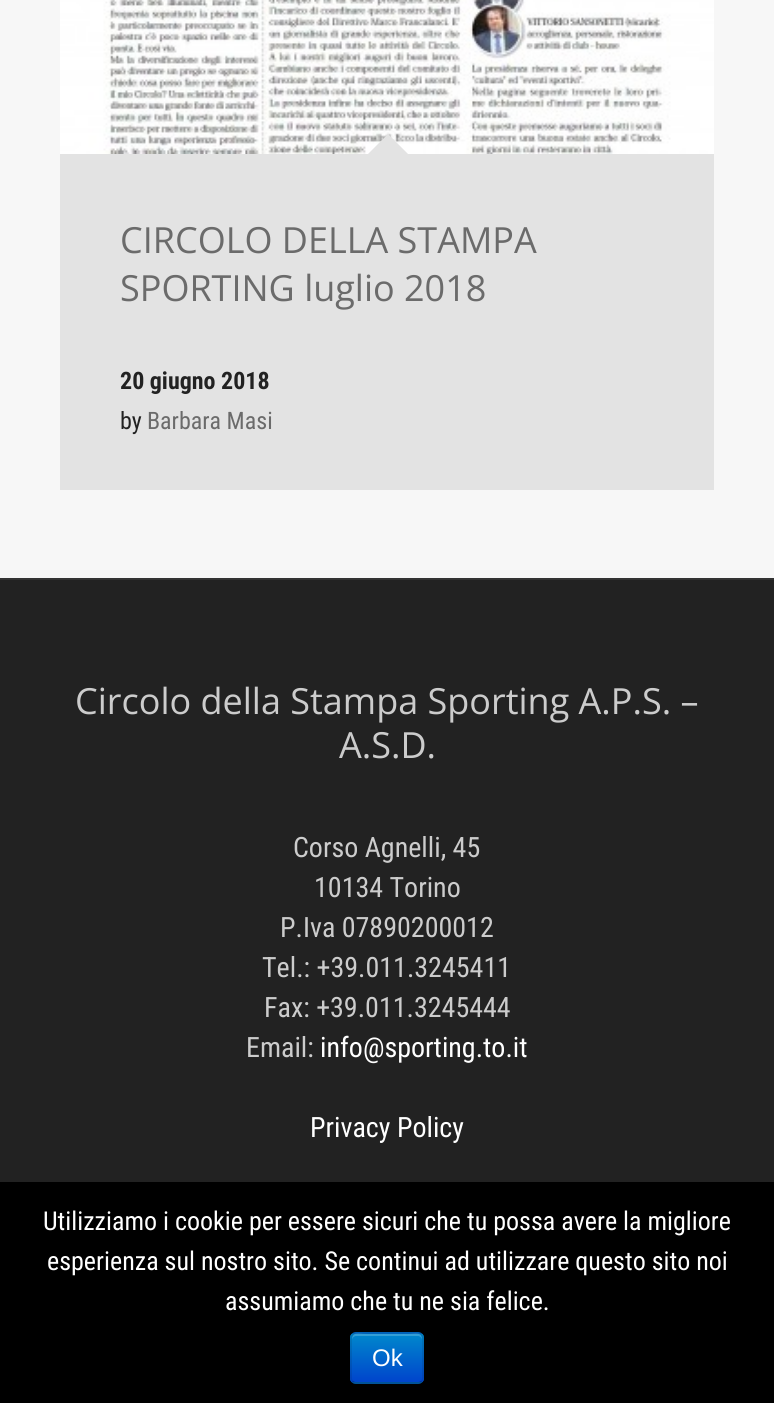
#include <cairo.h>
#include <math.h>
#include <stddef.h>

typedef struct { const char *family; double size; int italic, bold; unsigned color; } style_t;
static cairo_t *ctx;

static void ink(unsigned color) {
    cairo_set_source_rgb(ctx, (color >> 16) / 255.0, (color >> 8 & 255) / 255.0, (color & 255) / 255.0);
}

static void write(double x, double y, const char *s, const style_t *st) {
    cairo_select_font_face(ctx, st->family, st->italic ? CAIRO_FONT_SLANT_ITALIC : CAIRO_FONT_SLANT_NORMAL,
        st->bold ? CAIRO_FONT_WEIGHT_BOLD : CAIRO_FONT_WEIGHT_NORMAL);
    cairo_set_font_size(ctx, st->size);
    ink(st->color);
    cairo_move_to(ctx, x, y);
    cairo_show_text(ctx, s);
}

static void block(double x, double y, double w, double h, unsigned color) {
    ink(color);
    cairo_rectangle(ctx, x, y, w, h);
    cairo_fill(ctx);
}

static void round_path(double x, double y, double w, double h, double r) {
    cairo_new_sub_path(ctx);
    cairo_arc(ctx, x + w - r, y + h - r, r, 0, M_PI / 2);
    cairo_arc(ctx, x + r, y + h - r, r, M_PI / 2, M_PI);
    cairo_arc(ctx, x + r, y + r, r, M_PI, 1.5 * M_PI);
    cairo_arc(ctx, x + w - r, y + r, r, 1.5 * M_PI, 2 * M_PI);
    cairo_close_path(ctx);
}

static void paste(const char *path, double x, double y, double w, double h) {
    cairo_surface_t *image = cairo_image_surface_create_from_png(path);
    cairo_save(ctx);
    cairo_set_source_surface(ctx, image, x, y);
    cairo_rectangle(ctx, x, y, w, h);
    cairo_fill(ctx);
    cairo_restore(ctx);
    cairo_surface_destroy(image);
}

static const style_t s1 = {"Open Sans", 36, 0, 0, 0x6b6b6b};
static const style_t s2 = {"Roboto Condensed", 24, 0, 1, 0x222222};
static const style_t s3 = {"Roboto Condensed", 24, 0, 0, 0x222222};
static const style_t s4 = {"Roboto Condensed", 24, 0, 0, 0x6b6b6b};
static const style_t s5 = {"Open Sans", 36, 0, 0, 0xcccccc};
static const style_t s6 = {"Roboto Condensed", 28, 0, 0, 0xcccccc};
static const style_t s7 = {"Roboto Condensed", 28, 0, 0, 0xffffff};
static const style_t s8 = {"Roboto Condensed", 26, 0, 0, 0xffffff};
static const style_t s9 = {"Liberation Sans", 24, 0, 0, 0xffffff};

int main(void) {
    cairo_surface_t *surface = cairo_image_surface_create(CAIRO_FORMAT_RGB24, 774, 1403);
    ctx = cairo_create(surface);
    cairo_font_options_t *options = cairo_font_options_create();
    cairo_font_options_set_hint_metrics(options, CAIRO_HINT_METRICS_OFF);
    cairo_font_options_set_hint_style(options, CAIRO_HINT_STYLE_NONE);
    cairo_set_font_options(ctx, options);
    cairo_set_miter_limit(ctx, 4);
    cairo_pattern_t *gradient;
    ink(0x222222);
    cairo_paint(ctx);
    block(0, 0, 774, 578, 0xf7f7f7);
    paste("pic1.png", 60, 0, 654, 154);
    block(60, 154, 654, 336, 0xe3e3e3);
    cairo_new_path(ctx);
    cairo_move_to(ctx, 408, 154);
    cairo_line_to(ctx, 368, 154);
    cairo_line_to(ctx, 388, 134);
    cairo_close_path(ctx);
    cairo_fill(ctx);
    write(120, 253, "CIRCOLO DELLA STAMPA", &s1);
    write(120, 301, "SPORTING luglio 2018", &s1);
    write(120, 389, "20 giugno 2018", &s2);
    write(120, 429, "by", &s3);
    write(147, 429, "Barbara Masi", &s4);
    block(0, 578, 774, 2, 0x333333);
    write(75, 714, "Circolo della Stampa Sporting A.P.S. –", &s5);
    write(339, 758, "A.S.D.", &s5);
    write(293, 857, "Corso Agnelli, 45", &s6);
    write(314, 897, "10134 Torino", &s6);
    write(280, 937, "P.Iva 07890200012", &s6);
    write(262, 977, "Tel.: +39.011.3245411", &s6);
    write(264, 1017, "Fax: +39.011.3245444", &s6);
    write(246, 1057, "Email:", &s6);
    write(320, 1057, "info@sporting.to.it", &s7);
    write(310, 1137, "Privacy Policy", &s7);
    block(0, 1182, 774, 221, 0x000000);
    write(43, 1230, "Utilizziamo i cookie per essere sicuri che tu possa avere la migliore", &s8);
    write(47, 1270, "esperienza sul nostro sito. Se continui ad utilizzare questo sito noi", &s8);
    write(225, 1310, "assumiamo che tu ne sia felice.", &s8);
    ink(0x006dcc);
    round_path(350, 1332, 74, 52, 6);
    cairo_fill(ctx);
    cairo_save(ctx);
    round_path(350, 1332, 74, 52, 6);
    cairo_clip(ctx);
    gradient = cairo_pattern_create_linear(387, 1334, 387, 1382);
    cairo_pattern_add_color_stop_rgba(gradient, 0, 0, 0.533, 0.8, 1);
    cairo_pattern_add_color_stop_rgba(gradient, 1, 0, 0.267, 0.8, 1);
    cairo_set_source(ctx, gradient);
    cairo_pattern_destroy(gradient);
    cairo_rectangle(ctx, 350, 1334, 74, 48);
    cairo_fill(ctx);
    cairo_restore(ctx);
    cairo_set_source_rgba(ctx, 1, 1, 1, 0.2);
    cairo_new_path(ctx);
    cairo_move_to(ctx, 356, 1336);
    cairo_line_to(ctx, 418, 1336);
    cairo_curve_to(ctx, 420, 1336, 422, 1338, 422, 1340);
    cairo_curve_to(ctx, 422, 1331, 415, 1334, 408, 1334);
    cairo_line_to(ctx, 366, 1334);
    cairo_curve_to(ctx, 359, 1334, 352, 1331, 352, 1340);
    cairo_curve_to(ctx, 352, 1338, 354, 1336, 356, 1336);
    cairo_close_path(ctx);
    cairo_fill(ctx);
    cairo_new_path(ctx);
    cairo_move_to(ctx, 421.5, 1381.5);
    cairo_curve_to(ctx, 420.5, 1382.5, 419.5, 1383, 418, 1383);
    cairo_line_to(ctx, 356, 1383);
    cairo_curve_to(ctx, 354.5, 1383, 353.5, 1382.5, 352.5, 1381.5);
    cairo_set_source_rgba(ctx, 0, 0, 0, 0.25);
    cairo_stroke(ctx);
    cairo_new_path(ctx);
    cairo_move_to(ctx, 352.5, 1381.5);
    cairo_curve_to(ctx, 351.5, 1380.5, 351, 1379.5, 351, 1378);
    cairo_line_to(ctx, 351, 1338);
    cairo_curve_to(ctx, 351, 1336.5, 351.5, 1335.5, 352.5, 1334.5);
    cairo_curve_to(ctx, 353.5, 1333.5, 354.5, 1333, 356, 1333);
    cairo_line_to(ctx, 418, 1333);
    cairo_curve_to(ctx, 419.5, 1333, 420.5, 1333.5, 421.5, 1334.5);
    cairo_curve_to(ctx, 422.5, 1335.5, 423, 1336.5, 423, 1338);
    cairo_line_to(ctx, 423, 1378);
    cairo_curve_to(ctx, 423, 1379.5, 422.5, 1380.5, 421.5, 1381.5);
    cairo_set_source_rgba(ctx, 0, 0, 0, 0.1);
    cairo_stroke(ctx);
    write(372, 1366, "Ok", &s9);
    cairo_surface_write_to_png(surface, "screenshot.png");
    cairo_font_options_destroy(options);
    cairo_destroy(ctx);
    cairo_surface_destroy(surface);
    return 0;
}
